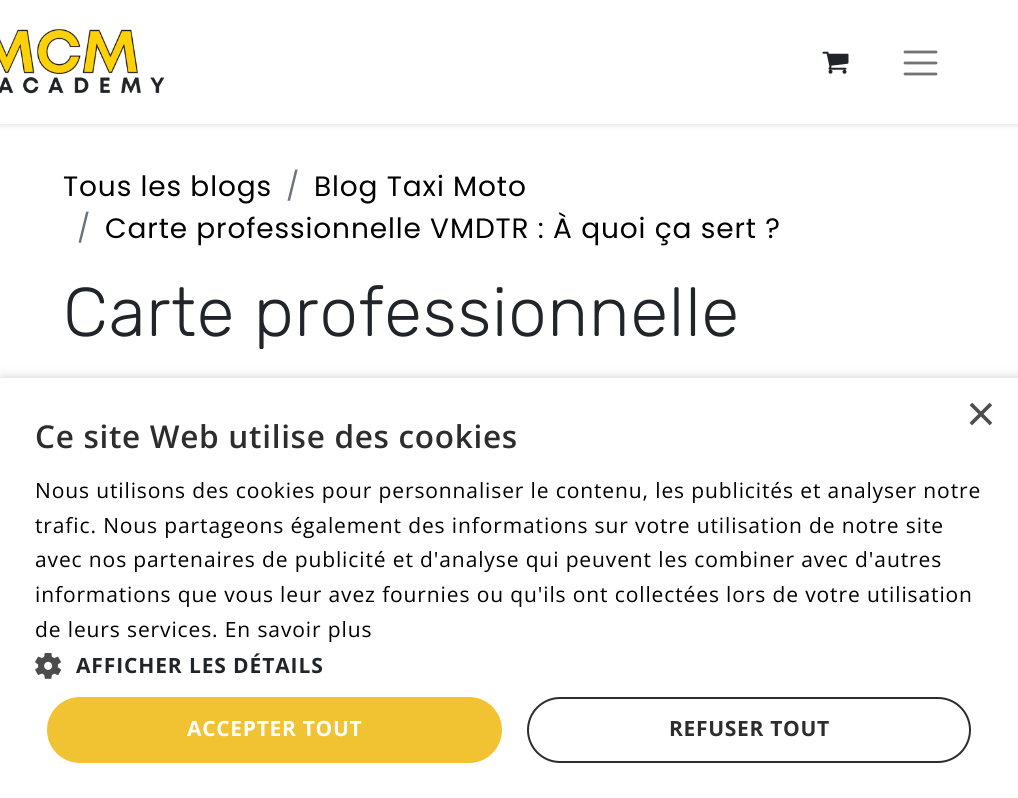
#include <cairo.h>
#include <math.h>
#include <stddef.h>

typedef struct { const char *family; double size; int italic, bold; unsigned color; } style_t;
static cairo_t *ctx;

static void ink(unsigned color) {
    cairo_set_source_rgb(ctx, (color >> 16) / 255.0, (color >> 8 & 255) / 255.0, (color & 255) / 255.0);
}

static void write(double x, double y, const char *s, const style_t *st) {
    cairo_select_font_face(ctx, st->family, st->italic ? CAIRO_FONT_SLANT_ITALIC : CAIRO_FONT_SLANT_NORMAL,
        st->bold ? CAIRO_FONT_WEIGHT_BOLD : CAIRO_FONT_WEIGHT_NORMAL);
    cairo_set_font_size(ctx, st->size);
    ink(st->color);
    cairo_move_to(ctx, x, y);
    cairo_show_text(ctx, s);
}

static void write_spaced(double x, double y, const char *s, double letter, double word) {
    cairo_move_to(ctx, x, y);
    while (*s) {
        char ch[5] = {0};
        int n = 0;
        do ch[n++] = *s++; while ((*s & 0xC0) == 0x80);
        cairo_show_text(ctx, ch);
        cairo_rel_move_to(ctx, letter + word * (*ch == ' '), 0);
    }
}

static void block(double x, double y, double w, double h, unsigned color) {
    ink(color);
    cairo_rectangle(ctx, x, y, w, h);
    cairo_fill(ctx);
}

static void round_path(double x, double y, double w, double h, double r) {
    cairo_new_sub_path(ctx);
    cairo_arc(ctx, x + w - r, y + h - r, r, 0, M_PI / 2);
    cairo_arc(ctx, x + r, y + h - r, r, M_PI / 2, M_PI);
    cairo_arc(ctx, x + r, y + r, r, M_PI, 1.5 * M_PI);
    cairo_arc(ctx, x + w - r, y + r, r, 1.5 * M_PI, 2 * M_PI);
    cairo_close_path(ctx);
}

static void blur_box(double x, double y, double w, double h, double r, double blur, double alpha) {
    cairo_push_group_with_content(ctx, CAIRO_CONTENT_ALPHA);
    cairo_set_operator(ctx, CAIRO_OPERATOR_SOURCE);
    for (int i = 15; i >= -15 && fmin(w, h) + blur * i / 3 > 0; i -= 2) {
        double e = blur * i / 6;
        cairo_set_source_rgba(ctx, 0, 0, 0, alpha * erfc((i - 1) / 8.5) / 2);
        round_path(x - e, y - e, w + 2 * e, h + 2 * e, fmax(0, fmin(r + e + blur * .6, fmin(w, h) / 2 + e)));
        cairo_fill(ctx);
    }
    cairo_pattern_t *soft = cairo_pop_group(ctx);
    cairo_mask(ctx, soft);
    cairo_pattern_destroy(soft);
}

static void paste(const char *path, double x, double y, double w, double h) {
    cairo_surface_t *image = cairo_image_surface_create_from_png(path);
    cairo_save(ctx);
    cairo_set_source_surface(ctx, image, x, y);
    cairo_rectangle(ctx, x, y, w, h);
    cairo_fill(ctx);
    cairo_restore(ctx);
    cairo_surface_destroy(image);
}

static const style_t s1 = {"Liberation Sans", 51, 0, 0, 0x4d4d4d};

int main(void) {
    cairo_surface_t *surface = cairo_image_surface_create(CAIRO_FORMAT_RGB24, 1018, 798);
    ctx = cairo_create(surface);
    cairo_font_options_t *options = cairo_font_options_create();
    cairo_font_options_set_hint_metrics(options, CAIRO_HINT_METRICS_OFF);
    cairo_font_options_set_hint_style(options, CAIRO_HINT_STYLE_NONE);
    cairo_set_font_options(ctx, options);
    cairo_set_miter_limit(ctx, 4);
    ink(0xffffff);
    cairo_paint(ctx);
    ink(0x000000);
    blur_box(0, 2, 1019, 124, 0, 2.5, 0.1);
    block(0, 0, 1018, 124, 0xffffff);
    paste("pic1.png", 0, 29, 165, 65);
    paste("pic2.png", 822, 51, 27, 23);
    cairo_new_path(ctx);
    cairo_move_to(ctx, 905, 52);
    cairo_line_to(ctx, 936, 52);
    cairo_move_to(ctx, 905, 63);
    cairo_line_to(ctx, 936, 63);
    cairo_move_to(ctx, 905, 74);
    cairo_line_to(ctx, 936, 74);
    ink(0x737373);
    cairo_set_line_width(ctx, 2.8);
    cairo_set_line_cap(ctx, CAIRO_LINE_CAP_ROUND);
    cairo_stroke(ctx);
    cairo_select_font_face(ctx, "Poppins", CAIRO_FONT_SLANT_NORMAL, CAIRO_FONT_WEIGHT_NORMAL);
    cairo_set_font_size(ctx, 28);
    ink(0x000000);
    write_spaced(63, 196, "Tous les blogs", 0.88, 0);
    ink(0x6c757d);
    write_spaced(286, 196, "/", 0.88, 0);
    ink(0x000000);
    write_spaced(314, 196, "Blog Taxi Moto", 0.88, 0);
    ink(0x6c757d);
    write_spaced(77, 238, "/", 0.88, 0);
    ink(0x000000);
    write_spaced(105, 238, "Carte professionnelle VMDTR : À quoi ça sert ?", 0.88, 0);
    cairo_select_font_face(ctx, "Rubik Light", CAIRO_FONT_SLANT_NORMAL, CAIRO_FONT_WEIGHT_NORMAL);
    cairo_set_font_size(ctx, 68.75);
    ink(0x212529);
    write_spaced(63, 336, "Carte professionnelle", 0.88, 0);
    ink(0x000000);
    blur_box(2, 382, 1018, 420, 0, 7, 0.35);
    block(0, 378, 1018, 420, 0xffffff);
    write(966, 431, "×", &s1);
    cairo_select_font_face(ctx, "Open Sans SemiBold", CAIRO_FONT_SLANT_NORMAL, CAIRO_FONT_WEIGHT_NORMAL);
    cairo_set_font_size(ctx, 31.5);
    ink(0x2d2d2d);
    write_spaced(35, 448, "Ce site Web utilise des cookies", 0.7, 0);
    cairo_select_font_face(ctx, "Open Sans", CAIRO_FONT_SLANT_NORMAL, CAIRO_FONT_WEIGHT_NORMAL);
    cairo_set_font_size(ctx, 21);
    ink(0x000000);
    write_spaced(35, 498, "Nous utilisons des cookies pour personnaliser le contenu, les publicités et analyser notre", 0.88, 0);
    write_spaced(35, 533, "trafic. Nous partageons également des informations sur votre utilisation de notre site", 0.88, 0);
    write_spaced(35, 567, "avec nos partenaires de publicité et d'analyse qui peuvent les combiner avec d'autres", 0.88, 0);
    write_spaced(35, 602, "informations que vous leur avez fournies ou qu'ils ont collectées lors de votre utilisation", 0.88, 0);
    write_spaced(35, 637, "de leurs services. En savoir plus", 0.88, 0);
    paste("pic3.png", 35, 653, 26, 26);
    cairo_select_font_face(ctx, "Open Sans", CAIRO_FONT_SLANT_NORMAL, CAIRO_FONT_WEIGHT_BOLD);
    ink(0x212529);
    write_spaced(76, 673, "AFFICHER LES DÉTAILS", 0.88, 0);
    ink(0xf1c232);
    round_path(47, 697, 455, 66, 33);
    cairo_fill(ctx);
    ink(0xffffff);
    write_spaced(187, 736, "ACCEPTER TOUT", 0.7, 0);
    round_path(528, 698, 442, 64, 32);
    ink(0x2d2d2d);
    cairo_set_line_width(ctx, 2);
    cairo_set_line_cap(ctx, CAIRO_LINE_CAP_BUTT);
    cairo_stroke(ctx);
    write_spaced(669, 736, "REFUSER TOUT", 0.7, 0);
    cairo_surface_write_to_png(surface, "screenshot.png");
    cairo_font_options_destroy(options);
    cairo_destroy(ctx);
    cairo_surface_destroy(surface);
    return 0;
}
